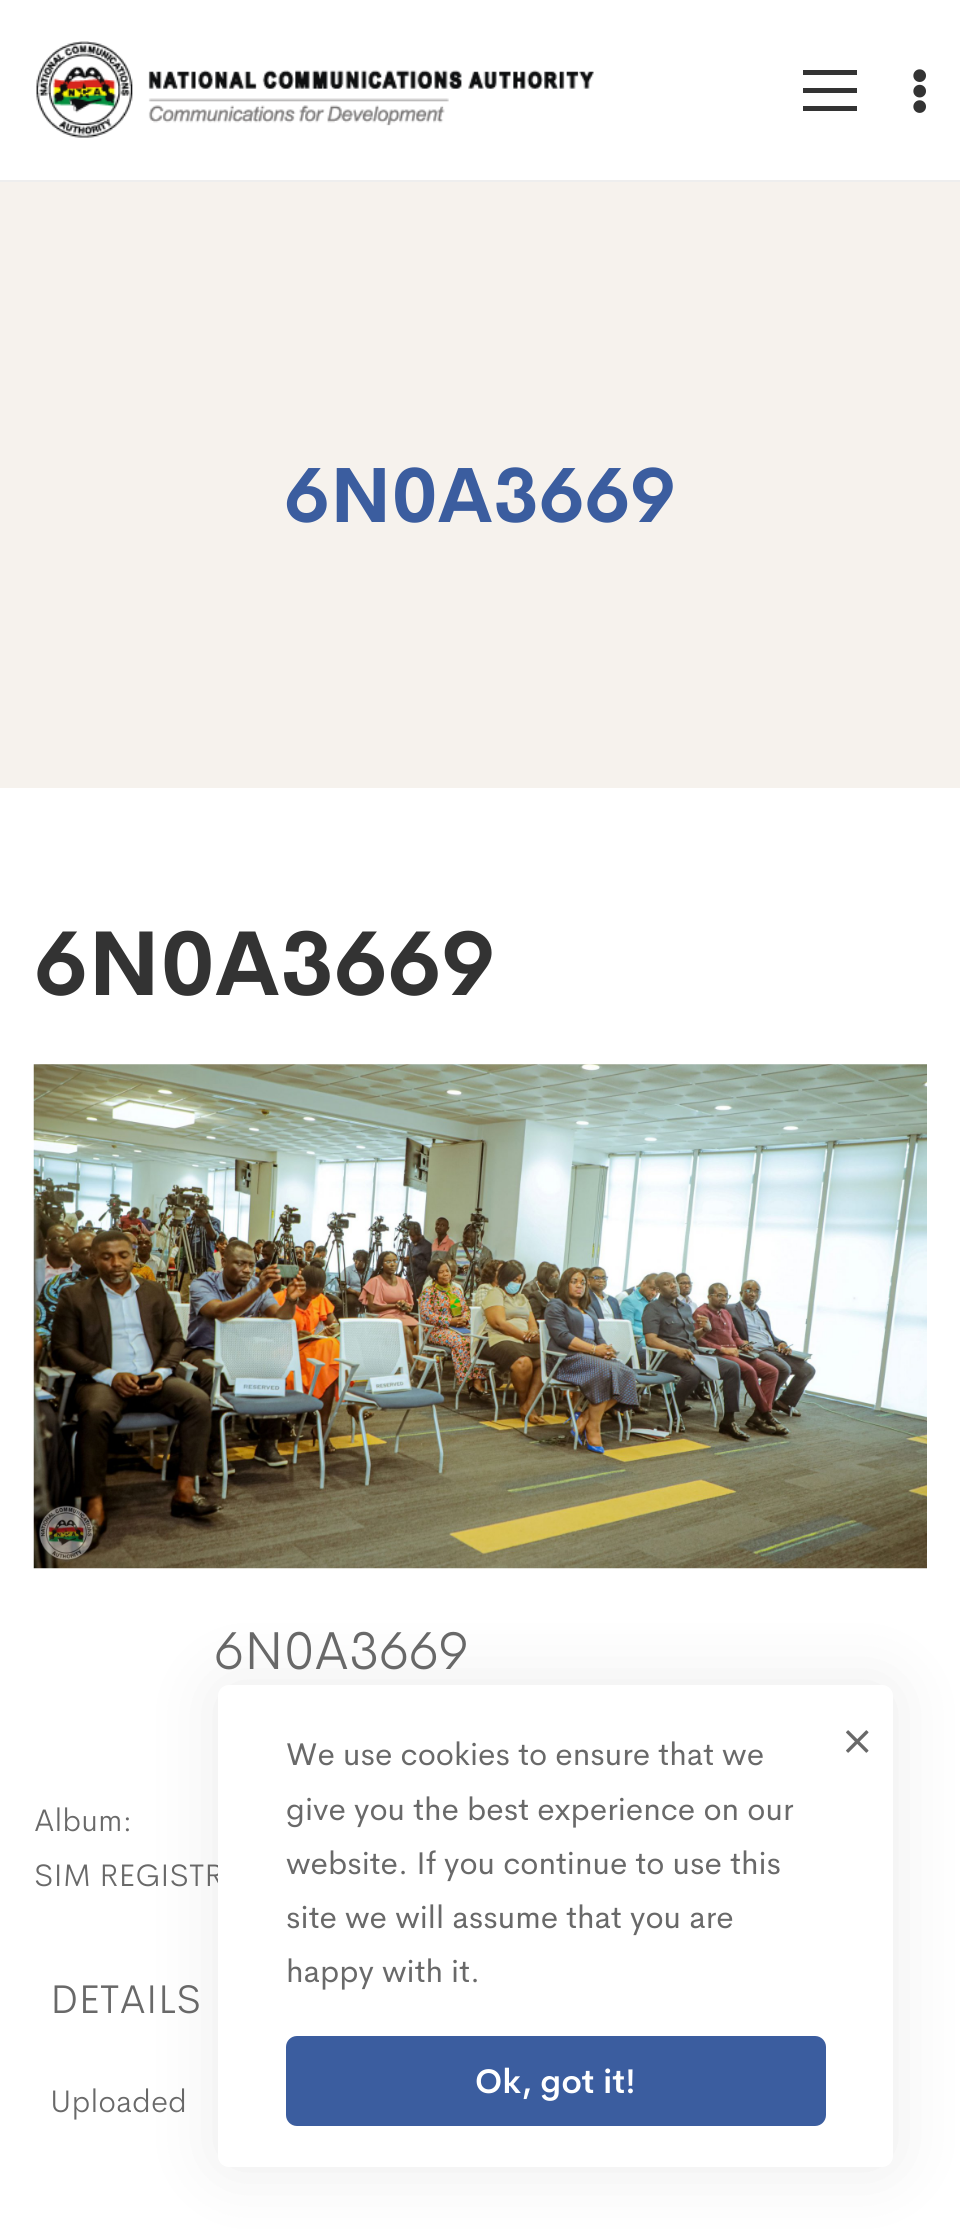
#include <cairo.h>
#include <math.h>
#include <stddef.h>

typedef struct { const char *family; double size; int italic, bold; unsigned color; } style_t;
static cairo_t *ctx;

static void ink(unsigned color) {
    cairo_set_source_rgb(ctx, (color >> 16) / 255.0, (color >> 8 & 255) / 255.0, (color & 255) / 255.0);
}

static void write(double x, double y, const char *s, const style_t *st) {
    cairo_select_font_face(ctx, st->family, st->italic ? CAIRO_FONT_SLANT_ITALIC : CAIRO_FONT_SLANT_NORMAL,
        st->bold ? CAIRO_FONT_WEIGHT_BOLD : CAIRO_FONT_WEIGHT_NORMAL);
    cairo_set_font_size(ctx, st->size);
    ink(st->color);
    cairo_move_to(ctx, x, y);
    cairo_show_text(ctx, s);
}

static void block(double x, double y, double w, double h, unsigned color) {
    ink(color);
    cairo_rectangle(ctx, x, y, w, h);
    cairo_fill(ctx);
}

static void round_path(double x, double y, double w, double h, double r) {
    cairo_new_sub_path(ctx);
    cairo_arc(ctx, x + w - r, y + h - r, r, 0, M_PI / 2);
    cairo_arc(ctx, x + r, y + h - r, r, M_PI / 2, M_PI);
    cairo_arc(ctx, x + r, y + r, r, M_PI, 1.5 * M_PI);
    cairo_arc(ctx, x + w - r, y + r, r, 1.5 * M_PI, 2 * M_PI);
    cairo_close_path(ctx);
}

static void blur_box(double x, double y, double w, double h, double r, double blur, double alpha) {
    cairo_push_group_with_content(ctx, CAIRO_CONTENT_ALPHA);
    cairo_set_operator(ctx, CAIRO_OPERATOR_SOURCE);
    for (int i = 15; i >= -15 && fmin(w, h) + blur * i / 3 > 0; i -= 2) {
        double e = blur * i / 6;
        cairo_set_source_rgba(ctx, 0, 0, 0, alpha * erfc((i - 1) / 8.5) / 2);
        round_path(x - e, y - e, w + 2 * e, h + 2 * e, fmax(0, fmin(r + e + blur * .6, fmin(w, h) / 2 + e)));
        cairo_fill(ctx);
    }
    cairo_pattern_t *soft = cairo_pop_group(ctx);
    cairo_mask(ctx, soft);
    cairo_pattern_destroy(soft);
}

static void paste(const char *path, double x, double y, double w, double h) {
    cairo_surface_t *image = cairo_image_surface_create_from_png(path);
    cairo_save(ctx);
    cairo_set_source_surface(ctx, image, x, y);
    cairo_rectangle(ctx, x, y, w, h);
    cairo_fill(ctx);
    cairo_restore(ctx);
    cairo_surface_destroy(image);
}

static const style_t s1 = {"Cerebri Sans", 76.5, 0, 1, 0x3b5d9f};
static const style_t s2 = {"Cerebri Sans", 90, 0, 1, 0x333333};
static const style_t s3 = {"Cerebri Sans Light", 54, 0, 0, 0x696969};
static const style_t s4 = {"Cerebri Sans Light", 31.5, 0, 0, 0x696969};
static const style_t s5 = {"Cerebri Sans Light", 40.5, 0, 0, 0x696969};
static const style_t s6 = {"Cerebri Sans", 31.5, 0, 0, 0x696969};
static const style_t s7 = {"Cerebri Sans SemiBold", 33.75, 0, 0, 0xffffff};

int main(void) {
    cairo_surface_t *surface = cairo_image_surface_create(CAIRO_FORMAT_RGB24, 960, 2233);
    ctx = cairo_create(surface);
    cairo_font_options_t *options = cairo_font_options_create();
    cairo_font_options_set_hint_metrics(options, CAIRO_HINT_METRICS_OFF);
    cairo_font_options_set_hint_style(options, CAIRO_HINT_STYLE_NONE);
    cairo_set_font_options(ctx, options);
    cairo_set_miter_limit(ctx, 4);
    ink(0xffffff);
    cairo_paint(ctx);
    block(0, 180, 960, 2, 0xeeeeee);
    paste("pic1.png", 36, 41, 558, 97);
    block(803, 88, 54, 5, 0x333333);
    block(803, 70, 54, 5, 0x333333);
    block(803, 106, 54, 5, 0x333333);
    paste("pic2.png", 913, 69, 13, 44);
    block(0, 182, 960, 606, 0xf6f2ed);
    write(284, 522, "6N0A3669", &s1);
    write(34, 995, "6N0A3669", &s2);
    paste("pic3.png", 33, 1064, 894, 505);
    write(214, 1669, "6N0A3669", &s3);
    write(34, 1831, "Album:", &s4);
    write(34, 1886, "SIM REGISTR", &s4);
    write(50, 2013, "DETAILS", &s5);
    write(50, 2112, "Uploaded", &s4);
    ink(0x333333);
    blur_box(218, 1685, 675, 482, 11, 34, 0.1);
    ink(0xffffff);
    round_path(218, 1685, 675, 482, 11);
    cairo_fill(ctx);
    write(286, 1765, "We use cookies to ensure that we", &s6);
    write(286, 1820, "give you the best experience on our", &s6);
    write(286, 1874, "website. If you continue to use this", &s6);
    write(286, 1928, "site we will assume that you are", &s6);
    write(286, 1982, "happy with it.", &s6);
    ink(0x3b5d9f);
    round_path(286, 2036, 540, 90, 11);
    cairo_fill(ctx);
    write(475, 2093, "Ok, got it!", &s7);
    paste("pic4.png", 846, 1730, 23, 23);
    cairo_surface_write_to_png(surface, "screenshot.png");
    cairo_font_options_destroy(options);
    cairo_destroy(ctx);
    cairo_surface_destroy(surface);
    return 0;
}
